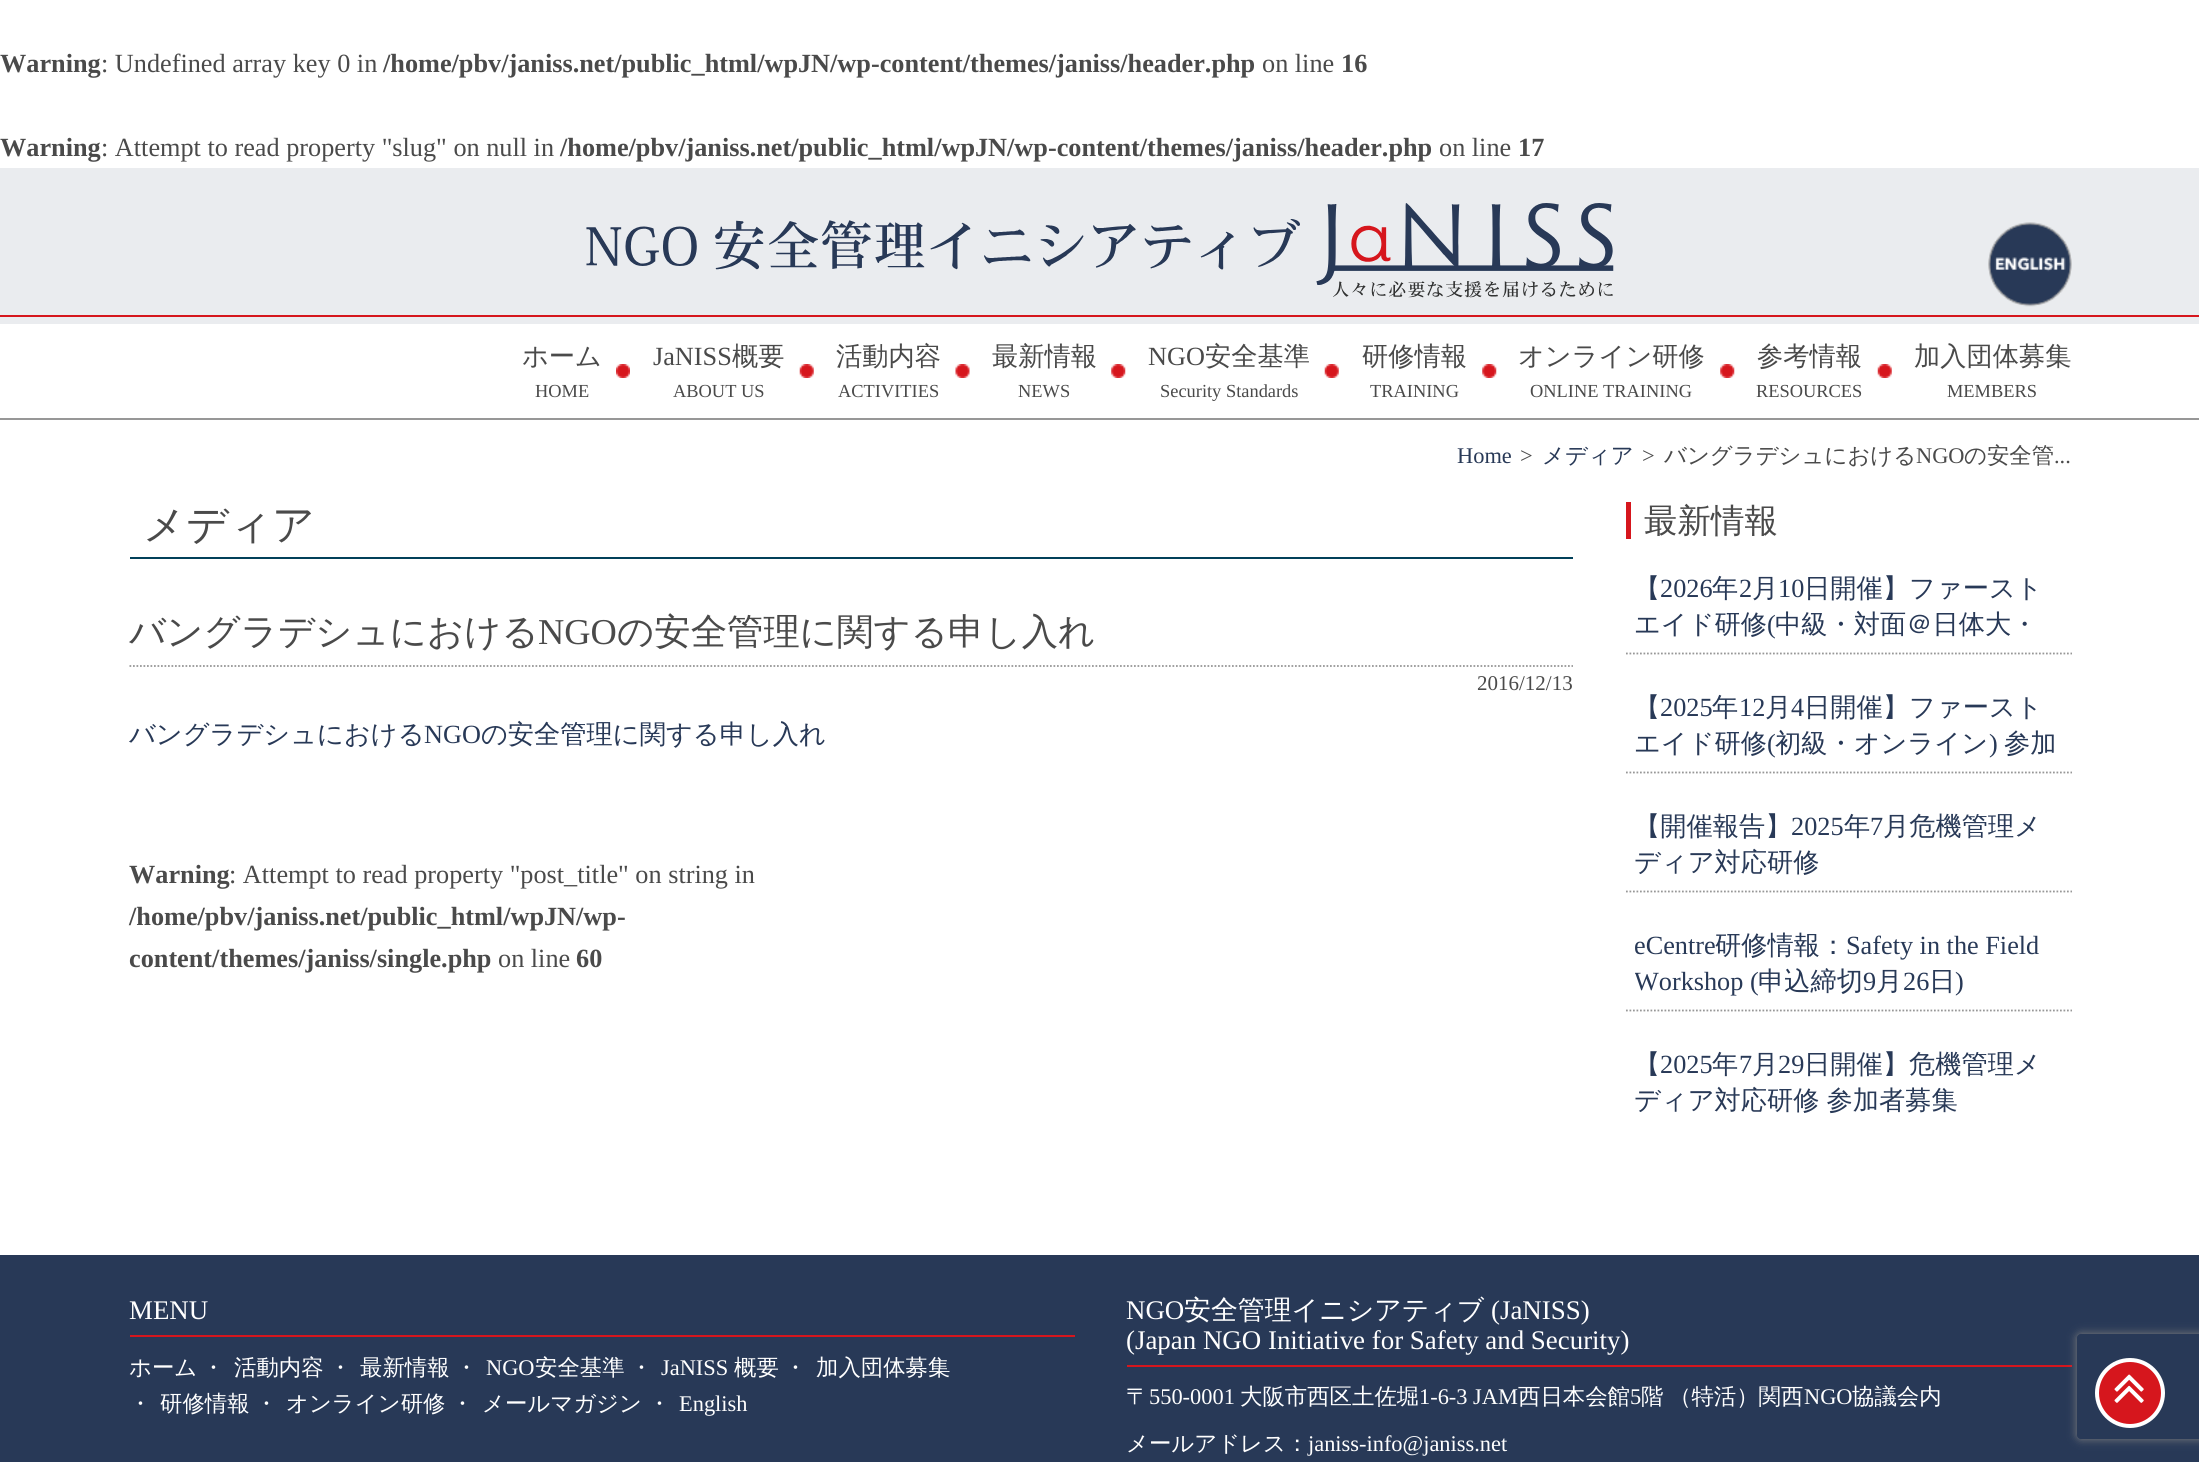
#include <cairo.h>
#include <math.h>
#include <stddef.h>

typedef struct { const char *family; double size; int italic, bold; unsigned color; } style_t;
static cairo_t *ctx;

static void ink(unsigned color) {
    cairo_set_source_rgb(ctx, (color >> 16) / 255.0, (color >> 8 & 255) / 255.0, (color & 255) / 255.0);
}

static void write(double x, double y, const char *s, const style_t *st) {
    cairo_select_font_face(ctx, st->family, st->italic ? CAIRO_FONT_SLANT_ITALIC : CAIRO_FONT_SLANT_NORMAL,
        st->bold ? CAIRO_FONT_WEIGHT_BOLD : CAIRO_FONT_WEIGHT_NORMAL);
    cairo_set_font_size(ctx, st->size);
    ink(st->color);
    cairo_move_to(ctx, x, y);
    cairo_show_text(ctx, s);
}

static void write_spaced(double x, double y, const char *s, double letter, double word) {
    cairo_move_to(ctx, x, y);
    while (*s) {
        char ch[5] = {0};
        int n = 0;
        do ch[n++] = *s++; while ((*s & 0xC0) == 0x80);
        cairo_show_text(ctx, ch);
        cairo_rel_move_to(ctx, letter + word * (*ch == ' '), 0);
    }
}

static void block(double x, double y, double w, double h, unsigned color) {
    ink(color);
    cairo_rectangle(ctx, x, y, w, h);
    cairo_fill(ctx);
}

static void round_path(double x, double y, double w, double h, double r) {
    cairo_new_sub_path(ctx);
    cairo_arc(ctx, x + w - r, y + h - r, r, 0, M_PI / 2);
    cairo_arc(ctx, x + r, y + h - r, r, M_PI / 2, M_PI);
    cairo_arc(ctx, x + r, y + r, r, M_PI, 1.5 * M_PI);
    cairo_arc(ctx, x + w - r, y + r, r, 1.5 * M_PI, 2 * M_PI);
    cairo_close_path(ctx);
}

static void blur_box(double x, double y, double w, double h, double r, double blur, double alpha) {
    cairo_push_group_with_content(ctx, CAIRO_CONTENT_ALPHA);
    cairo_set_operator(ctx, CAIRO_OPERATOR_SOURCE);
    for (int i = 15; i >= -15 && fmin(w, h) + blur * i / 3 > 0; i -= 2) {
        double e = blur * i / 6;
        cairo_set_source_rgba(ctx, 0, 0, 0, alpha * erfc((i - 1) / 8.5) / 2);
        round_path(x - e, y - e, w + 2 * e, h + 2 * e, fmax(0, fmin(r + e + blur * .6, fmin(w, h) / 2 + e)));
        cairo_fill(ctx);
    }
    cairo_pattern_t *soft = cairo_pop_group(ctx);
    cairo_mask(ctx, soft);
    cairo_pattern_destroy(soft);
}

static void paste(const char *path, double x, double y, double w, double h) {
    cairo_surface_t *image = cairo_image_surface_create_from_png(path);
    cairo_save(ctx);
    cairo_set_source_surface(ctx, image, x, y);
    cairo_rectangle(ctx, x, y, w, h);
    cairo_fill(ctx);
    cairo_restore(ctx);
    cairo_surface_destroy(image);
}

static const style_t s1 = {"Liberation Serif", 26.25, 0, 1, 0x4a4a4a};
static const style_t s2 = {"Liberation Serif", 26.25, 0, 0, 0x4a4a4a};
static const style_t s3 = {"WenQuanYi Zen Hei Medium", 26.25, 0, 0, 0x4a4a4a};
static const style_t s4 = {"Liberation Serif", 18.4, 0, 0, 0x4a4a4a};
static const style_t s5 = {"Liberation Serif", 22.4, 0, 0, 0x283957};
static const style_t s6 = {"Liberation Serif", 22.4, 0, 0, 0x4a4a4a};
static const style_t s7 = {"WenQuanYi Zen Hei Medium", 22.4, 0, 0, 0x283957};
static const style_t s8 = {"WenQuanYi Zen Hei Medium", 22.4, 0, 0, 0x4a4a4a};
static const style_t s9 = {"WenQuanYi Zen Hei Medium", 42, 0, 0, 0x4a4a4a};
static const style_t s10 = {"WenQuanYi Zen Hei Medium", 36.4, 0, 0, 0x4a4a4a};
static const style_t s11 = {"Liberation Serif", 36.4, 0, 0, 0x4a4a4a};
static const style_t s12 = {"Liberation Serif", 21, 0, 0, 0x4a4a4a};
static const style_t s13 = {"WenQuanYi Zen Hei Medium", 26.25, 0, 0, 0x283957};
static const style_t s14 = {"Liberation Serif", 26.25, 0, 0, 0x283957};
static const style_t s15 = {"WenQuanYi Zen Hei Medium", 33.5, 0, 0, 0x4a4a4a};
static const style_t s16 = {"Liberation Serif", 26.9, 0, 0, 0xffffff};
static const style_t s17 = {"WenQuanYi Zen Hei Medium", 22.4, 0, 0, 0xffffff};
static const style_t s18 = {"Liberation Serif", 22.4, 0, 0, 0xffffff};
static const style_t s19 = {"WenQuanYi Zen Hei Medium", 26.9, 0, 0, 0xffffff};

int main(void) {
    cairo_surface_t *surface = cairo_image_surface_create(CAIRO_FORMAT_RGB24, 2199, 1462);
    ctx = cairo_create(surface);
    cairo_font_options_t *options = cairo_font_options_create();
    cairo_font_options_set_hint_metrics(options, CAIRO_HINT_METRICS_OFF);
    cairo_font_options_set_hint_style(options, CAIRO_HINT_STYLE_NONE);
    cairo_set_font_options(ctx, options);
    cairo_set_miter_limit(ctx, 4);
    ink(0xffffff);
    cairo_paint(ctx);
    write(0, 72, "Warning", &s1);
    write(101, 72, ": Undefined array key 0 in", &s2);
    write(383, 72, "/home/pbv/janiss.net/public_html/wpJN/wp-content/themes/janiss/header.php", &s1);
    write(1262, 72, "on line", &s2);
    write(1341, 72, "16", &s1);
    write(0, 156, "Warning", &s1);
    write(101, 156, ": Attempt to read property \"slug\" on null in", &s2);
    write(560, 156, "/home/pbv/janiss.net/public_html/wpJN/wp-content/themes/janiss/header.php", &s1);
    write(1439, 156, "on line", &s2);
    write(1518, 156, "17", &s1);
    block(0, 418, 2199, 2, 0x979797);
    block(0, 168, 2199, 156, 0xeaecef);
    paste("pic1.png", 586, 203, 1028, 95);
    paste("pic2.png", 1988, 222, 84, 85);
    block(0, 315, 2199, 2, 0xd6161d);
    write(522, 365, "ホーム", &s3);
    write(535, 397, "HOME", &s4);
    paste("pic3.png", 616, 364, 14, 14);
    write(653, 365, "JaNISS", &s2);
    write(732, 365, "概要", &s3);
    write(673, 397, "ABOUT US", &s4);
    paste("pic4.png", 799, 364, 15, 14);
    write(836, 365, "活動内容", &s3);
    write(838, 397, "ACTIVITIES", &s4);
    paste("pic5.png", 955, 364, 15, 14);
    write(992, 365, "最新情報", &s3);
    write(1018, 397, "NEWS", &s4);
    paste("pic6.png", 1111, 364, 15, 14);
    write(1148, 365, "NGO", &s2);
    write(1205, 365, "安全基準", &s3);
    write(1160, 397, "Security Standards", &s4);
    paste("pic4.png", 1324, 364, 15, 14);
    write(1362, 365, "研修情報", &s3);
    write(1370, 397, "TRAINING", &s4);
    paste("pic6.png", 1482, 364, 15, 14);
    write(1518, 365, "オンライン研修", &s3);
    write(1530, 397, "ONLINE TRAINING", &s4);
    paste("pic6.png", 1720, 364, 15, 14);
    write(1757, 365, "参考情報", &s3);
    write(1756, 397, "RESOURCES", &s4);
    paste("pic7.png", 1877, 364, 15, 14);
    write(1914, 365, "加入団体募集", &s3);
    write(1947, 397, "MEMBERS", &s4);
    write(1457, 463, "Home", &s5);
    write(1520, 463, ">", &s6);
    write(1542, 463, "メディア", &s7);
    write(1642, 463, ">", &s6);
    write(1664, 463, "バングラデシュにおける", &s8);
    write(1916, 463, "NGO", &s6);
    write(1964, 463, "の安全管", &s8);
    write(2054, 463, "...", &s6);
    block(130, 557, 1443, 2, 0x014059);
    write(143, 539, "メディア", &s9);
    cairo_new_path(ctx);
    cairo_move_to(ctx, 129.5, 666);
    cairo_line_to(ctx, 1573, 666);
    ink(0x979797);
    cairo_set_line_width(ctx, 1.8);
    cairo_set_dash(ctx, (double[]){1.75, 1.75}, 2, 0);
    cairo_stroke(ctx);
    write(129, 644, "バングラデシュにおける", &s10);
    write(538, 644, "NGO", &s11);
    write(617, 644, "の安全管理に関する申し入れ", &s10);
    write(1477, 690, "2016/12/13", &s12);
    write(129, 743, "バングラデシュにおける", &s13);
    write(424, 743, "NGO", &s14);
    write(481, 743, "の安全管理に関する申し入れ", &s13);
    write(129, 883, "Warning", &s1);
    write(229, 883, ": Attempt to read property \"post_title\" on string in", &s2);
    write(129, 925, "/home/pbv/janiss.net/public_html/wpJN/wp-", &s1);
    write(129, 967, "content/themes/janiss/single.php", &s1);
    write(498, 967, "on line", &s2);
    write(576, 967, "60", &s1);
    block(1626, 502, 5, 37, 0xd6161d);
    write(1644, 532, "最新情報", &s15);
    cairo_new_path(ctx);
    cairo_move_to(ctx, 1626, 653.5);
    cairo_line_to(ctx, 2072, 653.5);
    ink(0x979797);
    cairo_stroke(ctx);
    write(1634, 597, "【", &s13);
    write(1660, 597, "2026", &s14);
    write(1712, 597, "年", &s13);
    write(1739, 597, "2", &s14);
    write(1752, 597, "月", &s13);
    write(1778, 597, "10", &s14);
    write(1804, 597, "日開催】ファースト", &s13);
    write(1634, 633, "エイド研修", &s13);
    write(1767, 633, "(", &s14);
    write(1775, 633, "中級・対面＠日体大・", &s13);
    cairo_new_path(ctx);
    cairo_move_to(ctx, 1626, 772.5);
    cairo_line_to(ctx, 2072, 772.5);
    ink(0x979797);
    cairo_stroke(ctx);
    write(1634, 716, "【", &s13);
    write(1660, 716, "2025", &s14);
    write(1712, 716, "年", &s13);
    write(1739, 716, "12", &s14);
    write(1765, 716, "月", &s13);
    write(1791, 716, "4", &s14);
    write(1804, 716, "日開催】ファースト", &s13);
    write(1634, 752, "エイド研修", &s13);
    write(1767, 752, "(", &s14);
    write(1775, 752, "初級・オンライン", &s13);
    write(1989, 752, ")", &s14);
    write(2004, 752, "参加", &s13);
    cairo_new_path(ctx);
    cairo_move_to(ctx, 1626, 891.5);
    cairo_line_to(ctx, 2072, 891.5);
    ink(0x979797);
    cairo_stroke(ctx);
    write(1634, 835, "【開催報告】", &s13);
    write(1791, 835, "2025", &s14);
    write(1844, 835, "年", &s13);
    write(1870, 835, "7", &s14);
    write(1883, 835, "月危機管理メ", &s13);
    write(1634, 871, "ディア対応研修", &s13);
    cairo_new_path(ctx);
    cairo_move_to(ctx, 1626, 1010.5);
    cairo_line_to(ctx, 2072, 1010.5);
    ink(0x979797);
    cairo_stroke(ctx);
    cairo_save(ctx);
    cairo_rectangle(ctx, 1635, 928, 428, 73);
    cairo_clip(ctx);
    write(1634, 954, "eCentre", &s14);
    cairo_restore(ctx);
    write(1715, 954, "研修情報：", &s13);
    write(1846, 954, "Safety in the Field", &s14);
    cairo_save(ctx);
    cairo_rectangle(ctx, 1635, 928, 428, 73);
    cairo_clip(ctx);
    write(1634, 990, "Workshop (", &s14);
    cairo_restore(ctx);
    write(1758, 990, "申込締切", &s13);
    write(1863, 990, "9", &s14);
    write(1876, 990, "月", &s13);
    write(1903, 990, "26", &s14);
    write(1929, 990, "日", &s13);
    write(1955, 990, ")", &s14);
    write(1634, 1073, "【", &s13);
    write(1660, 1073, "2025", &s14);
    write(1712, 1073, "年", &s13);
    write(1739, 1073, "7", &s14);
    write(1752, 1073, "月", &s13);
    write(1778, 1073, "29", &s14);
    write(1804, 1073, "日開催】危機管理メ", &s13);
    write_spaced(1634, 1109, "ディア対応研修 参加者募集", 0, -1);
    block(0, 1255, 2199, 207, 0x283957);
    block(130, 1335, 945, 2, 0xd6161d);
    write(129, 1319, "MENU", &s16);
    write(129, 1375, "ホーム", &s17);
    write(202, 1375, "・", &s17);
    write(234, 1375, "活動内容", &s17);
    write(329, 1375, "・", &s17);
    write(360, 1375, "最新情報", &s17);
    write(455, 1375, "・", &s17);
    write(486, 1375, "NGO", &s18);
    write(535, 1375, "安全基準", &s17);
    write(630, 1375, "・", &s17);
    write(661, 1375, "JaNISS", &s18);
    write(734, 1375, "概要", &s17);
    write(784, 1375, "・", &s17);
    write(816, 1375, "加入団体募集", &s17);
    write(129, 1411, "・", &s17);
    write(160, 1411, "研修情報", &s17);
    write(255, 1411, "・", &s17);
    write(286, 1411, "オンライン研修", &s17);
    write(451, 1411, "・", &s17);
    write(482, 1411, "メールマガジン", &s17);
    write(648, 1411, "・", &s17);
    write(679, 1411, "English", &s18);
    block(1127, 1365, 945, 2, 0xd6161d);
    write(1126, 1319, "NGO", &s16);
    write(1184, 1319, "安全管理イニシアティブ", &s19);
    write(1491, 1319, "(JaNISS)", &s16);
    write(1126, 1349, "(Japan NGO Initiative for Safety and Security)", &s16);
    write(1126, 1404, "〒", &s17);
    write(1149, 1404, "550-0001", &s18);
    write(1240, 1404, "大阪市西区土佐堀", &s17);
    write(1419, 1404, "1-6-3 JAM", &s18);
    write(1518, 1404, "西日本会館", &s17);
    write(1630, 1404, "5", &s18);
    write(1641, 1404, "階", &s17);
    write(1669, 1404, "（特活）関西", &s17);
    write(1804, 1404, "NGO", &s18);
    write(1852, 1404, "協議会内", &s17);
    write(1126, 1451, "メールアドレス：", &s17);
    write(1308, 1451, "janiss-info@janiss.net", &s18);
    ink(0xd6161d);
    cairo_new_path(ctx);
    cairo_arc(ctx, 2130, 1393, 33, 0, 2 * M_PI);
    cairo_fill_preserve(ctx);
    ink(0xffffff);
    cairo_set_line_width(ctx, 4);
    cairo_set_dash(ctx, NULL, 0, 0);
    cairo_stroke(ctx);
    paste("pic8.png", 2114, 1374, 30, 29);
    cairo_save(ctx);
    cairo_set_fill_rule(ctx, CAIRO_FILL_RULE_EVEN_ODD);
    cairo_new_path(ctx);
    cairo_move_to(ctx, 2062, 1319);
    cairo_line_to(ctx, 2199, 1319);
    cairo_line_to(ctx, 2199, 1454);
    cairo_line_to(ctx, 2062, 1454);
    cairo_close_path(ctx);
    cairo_move_to(ctx, 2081, 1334);
    cairo_line_to(ctx, 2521, 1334);
    cairo_curve_to(ctx, 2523, 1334, 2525, 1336, 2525, 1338);
    cairo_line_to(ctx, 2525, 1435);
    cairo_curve_to(ctx, 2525, 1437, 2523, 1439, 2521, 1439);
    cairo_line_to(ctx, 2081, 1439);
    cairo_curve_to(ctx, 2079, 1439, 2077, 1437, 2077, 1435);
    cairo_line_to(ctx, 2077, 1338);
    cairo_curve_to(ctx, 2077, 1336, 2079, 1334, 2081, 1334);
    cairo_close_path(ctx);
    cairo_clip(ctx);
    ink(0x808080);
    blur_box(2077, 1334, 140, 105, 4, 4.5, 1);
    cairo_restore(ctx);
    cairo_surface_write_to_png(surface, "screenshot.png");
    cairo_font_options_destroy(options);
    cairo_destroy(ctx);
    cairo_surface_destroy(surface);
    return 0;
}
